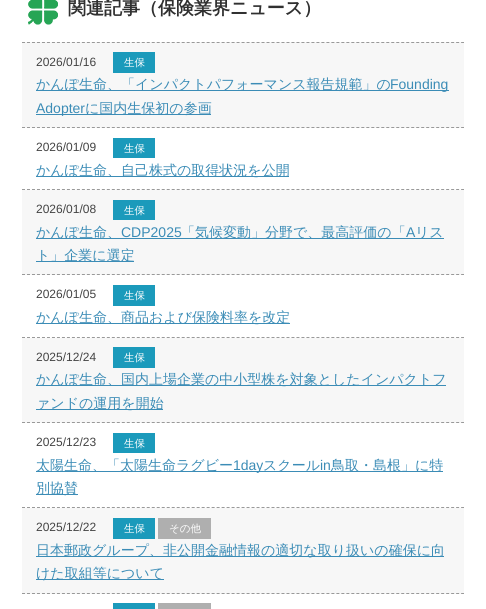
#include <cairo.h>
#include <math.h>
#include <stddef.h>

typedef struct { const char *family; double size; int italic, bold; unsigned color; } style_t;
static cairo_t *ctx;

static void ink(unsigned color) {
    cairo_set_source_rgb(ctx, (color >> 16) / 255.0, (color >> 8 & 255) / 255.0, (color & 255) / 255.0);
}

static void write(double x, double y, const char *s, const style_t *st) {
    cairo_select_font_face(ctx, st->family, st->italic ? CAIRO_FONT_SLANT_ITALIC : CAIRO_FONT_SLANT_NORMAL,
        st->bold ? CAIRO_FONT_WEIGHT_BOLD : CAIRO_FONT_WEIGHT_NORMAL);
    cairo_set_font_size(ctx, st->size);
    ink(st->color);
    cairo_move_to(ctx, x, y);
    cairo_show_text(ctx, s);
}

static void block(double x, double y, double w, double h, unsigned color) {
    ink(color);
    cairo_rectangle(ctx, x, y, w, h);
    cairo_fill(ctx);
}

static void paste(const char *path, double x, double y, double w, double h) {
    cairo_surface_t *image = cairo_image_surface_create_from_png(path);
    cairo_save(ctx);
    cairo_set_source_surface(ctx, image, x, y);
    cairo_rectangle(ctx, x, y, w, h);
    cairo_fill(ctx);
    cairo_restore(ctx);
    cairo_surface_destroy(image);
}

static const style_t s1 = {"WenQuanYi Zen Hei", 18, 0, 1, 0x303030};
static const style_t s2 = {"Liberation Sans", 12, 0, 0, 0x434343};
static const style_t s3 = {"WenQuanYi Zen Hei Medium", 10.5, 0, 0, 0xffffff};
static const style_t s4 = {"WenQuanYi Zen Hei Medium", 14, 0, 0, 0x3b8cb6};
static const style_t s5 = {"Liberation Sans", 14, 0, 0, 0x3b8cb6};

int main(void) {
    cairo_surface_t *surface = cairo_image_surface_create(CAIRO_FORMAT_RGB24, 486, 609);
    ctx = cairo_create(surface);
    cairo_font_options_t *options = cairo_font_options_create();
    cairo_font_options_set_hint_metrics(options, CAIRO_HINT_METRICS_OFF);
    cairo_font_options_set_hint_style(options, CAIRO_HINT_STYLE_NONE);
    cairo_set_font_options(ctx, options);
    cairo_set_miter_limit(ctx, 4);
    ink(0xffffff);
    cairo_paint(ctx);
    paste("pic1.png", 28, 0, 30, 25);
    write(68, 14, "関連記事（保険業界ニュース）", &s1);
    block(22, 42, 442, 86, 0xf7f7f7);
    cairo_new_path(ctx);
    cairo_move_to(ctx, 22, 42.5);
    cairo_line_to(ctx, 464, 42.5);
    ink(0x999999);
    cairo_set_line_width(ctx, 1);
    cairo_set_dash(ctx, (double[]){3, 1.99}, 2, 0);
    cairo_stroke(ctx);
    cairo_new_path(ctx);
    cairo_move_to(ctx, 22, 127.5);
    cairo_line_to(ctx, 464, 127.5);
    cairo_stroke(ctx);
    write(36, 66, "2026/01/16", &s2);
    block(113, 52, 42, 21, 0x1b9abb);
    write(124, 66, "生保", &s3);
    block(36, 90, 413, 1, 0x3b8cb6);
    write(36, 89, "かんぽ生命、「インパクトパフォーマンス報告規範」の", &s4);
    write(390, 89, "Founding", &s5);
    block(36, 114, 175, 1, 0x3b8cb6);
    write(36, 113, "Adopter", &s5);
    write(85, 113, "に国内生保初の参画", &s4);
    cairo_new_path(ctx);
    cairo_move_to(ctx, 22, 189.5);
    cairo_line_to(ctx, 464, 189.5);
    ink(0x999999);
    cairo_stroke(ctx);
    write(36, 151, "2026/01/09", &s2);
    block(113, 138, 42, 20, 0x1b9abb);
    write(124, 152, "生保", &s3);
    block(36, 176, 253, 1, 0x3b8cb6);
    write(36, 175, "かんぽ生命、自己株式の取得状況を公開", &s4);
    block(22, 190, 442, 85, 0xf7f7f7);
    cairo_new_path(ctx);
    cairo_move_to(ctx, 22, 274.5);
    cairo_line_to(ctx, 464, 274.5);
    ink(0x999999);
    cairo_stroke(ctx);
    write(36, 213, "2026/01/08", &s2);
    block(113, 200, 42, 20, 0x1b9abb);
    write(124, 214, "生保", &s3);
    block(36, 238, 408, 1, 0x3b8cb6);
    write(36, 237, "かんぽ生命、", &s4);
    write(121, 237, "CDP2025", &s5);
    write(181, 237, "「気候変動」分野で、最高評価の「", &s4);
    write(406, 237, "A", &s5);
    write(415, 237, "リス", &s4);
    block(36, 261, 98, 1, 0x3b8cb6);
    write(36, 260, "ト」企業に選定", &s4);
    cairo_new_path(ctx);
    cairo_move_to(ctx, 22, 337.5);
    cairo_line_to(ctx, 464, 337.5);
    ink(0x999999);
    cairo_stroke(ctx);
    write(36, 298, "2026/01/05", &s2);
    block(113, 285, 42, 21, 0x1b9abb);
    write(124, 299, "生保", &s3);
    block(36, 323, 254, 1, 0x3b8cb6);
    write(36, 322, "かんぽ生命、商品および保険料率を改定", &s4);
    block(22, 338, 442, 85, 0xf7f7f7);
    cairo_new_path(ctx);
    cairo_move_to(ctx, 22, 422.5);
    cairo_line_to(ctx, 464, 422.5);
    ink(0x999999);
    cairo_stroke(ctx);
    write(36, 361, "2025/12/24", &s2);
    block(113, 347, 42, 21, 0x1b9abb);
    write(124, 361, "生保", &s3);
    block(36, 385, 410, 1, 0x3b8cb6);
    write(36, 384, "かんぽ生命、国内上場企業の中小型株を対象としたインパクトフ", &s4);
    block(36, 409, 127, 1, 0x3b8cb6);
    write(36, 408, "ァンドの運用を開始", &s4);
    cairo_new_path(ctx);
    cairo_move_to(ctx, 22, 507.5);
    cairo_line_to(ctx, 464, 507.5);
    ink(0x999999);
    cairo_stroke(ctx);
    write(36, 446, "2025/12/23", &s2);
    block(113, 433, 42, 20, 0x1b9abb);
    write(124, 447, "生保", &s3);
    block(36, 471, 407, 1, 0x3b8cb6);
    write(36, 470, "太陽生命、「太陽生命ラグビー", &s4);
    write(233, 470, "1day", &s5);
    write(263, 470, "スクール", &s4);
    write(320, 470, "in", &s5);
    write(331, 470, "鳥取・島根」に特", &s4);
    block(36, 494, 42, 1, 0x3b8cb6);
    write(36, 493, "別協賛", &s4);
    block(22, 508, 442, 86, 0xf7f7f7);
    cairo_new_path(ctx);
    cairo_move_to(ctx, 22, 593.5);
    cairo_line_to(ctx, 464, 593.5);
    ink(0x999999);
    cairo_stroke(ctx);
    write(36, 531, "2025/12/22", &s2);
    block(113, 518, 42, 21, 0x1b9abb);
    write(124, 532, "生保", &s3);
    block(158, 518, 53, 21, 0xafafaf);
    write(169, 532, "その他", &s3);
    block(36, 556, 408, 1, 0x3b8cb6);
    write(36, 555, "日本郵政グループ、非公開金融情報の適切な取り扱いの確保に向", &s4);
    block(36, 579, 128, 1, 0x3b8cb6);
    write(36, 578, "けた取組等について", &s4);
    block(113, 603, 42, 6, 0x1b9abb);
    block(158, 603, 53, 6, 0xafafaf);
    cairo_surface_write_to_png(surface, "screenshot.png");
    cairo_font_options_destroy(options);
    cairo_destroy(ctx);
    cairo_surface_destroy(surface);
    return 0;
}
